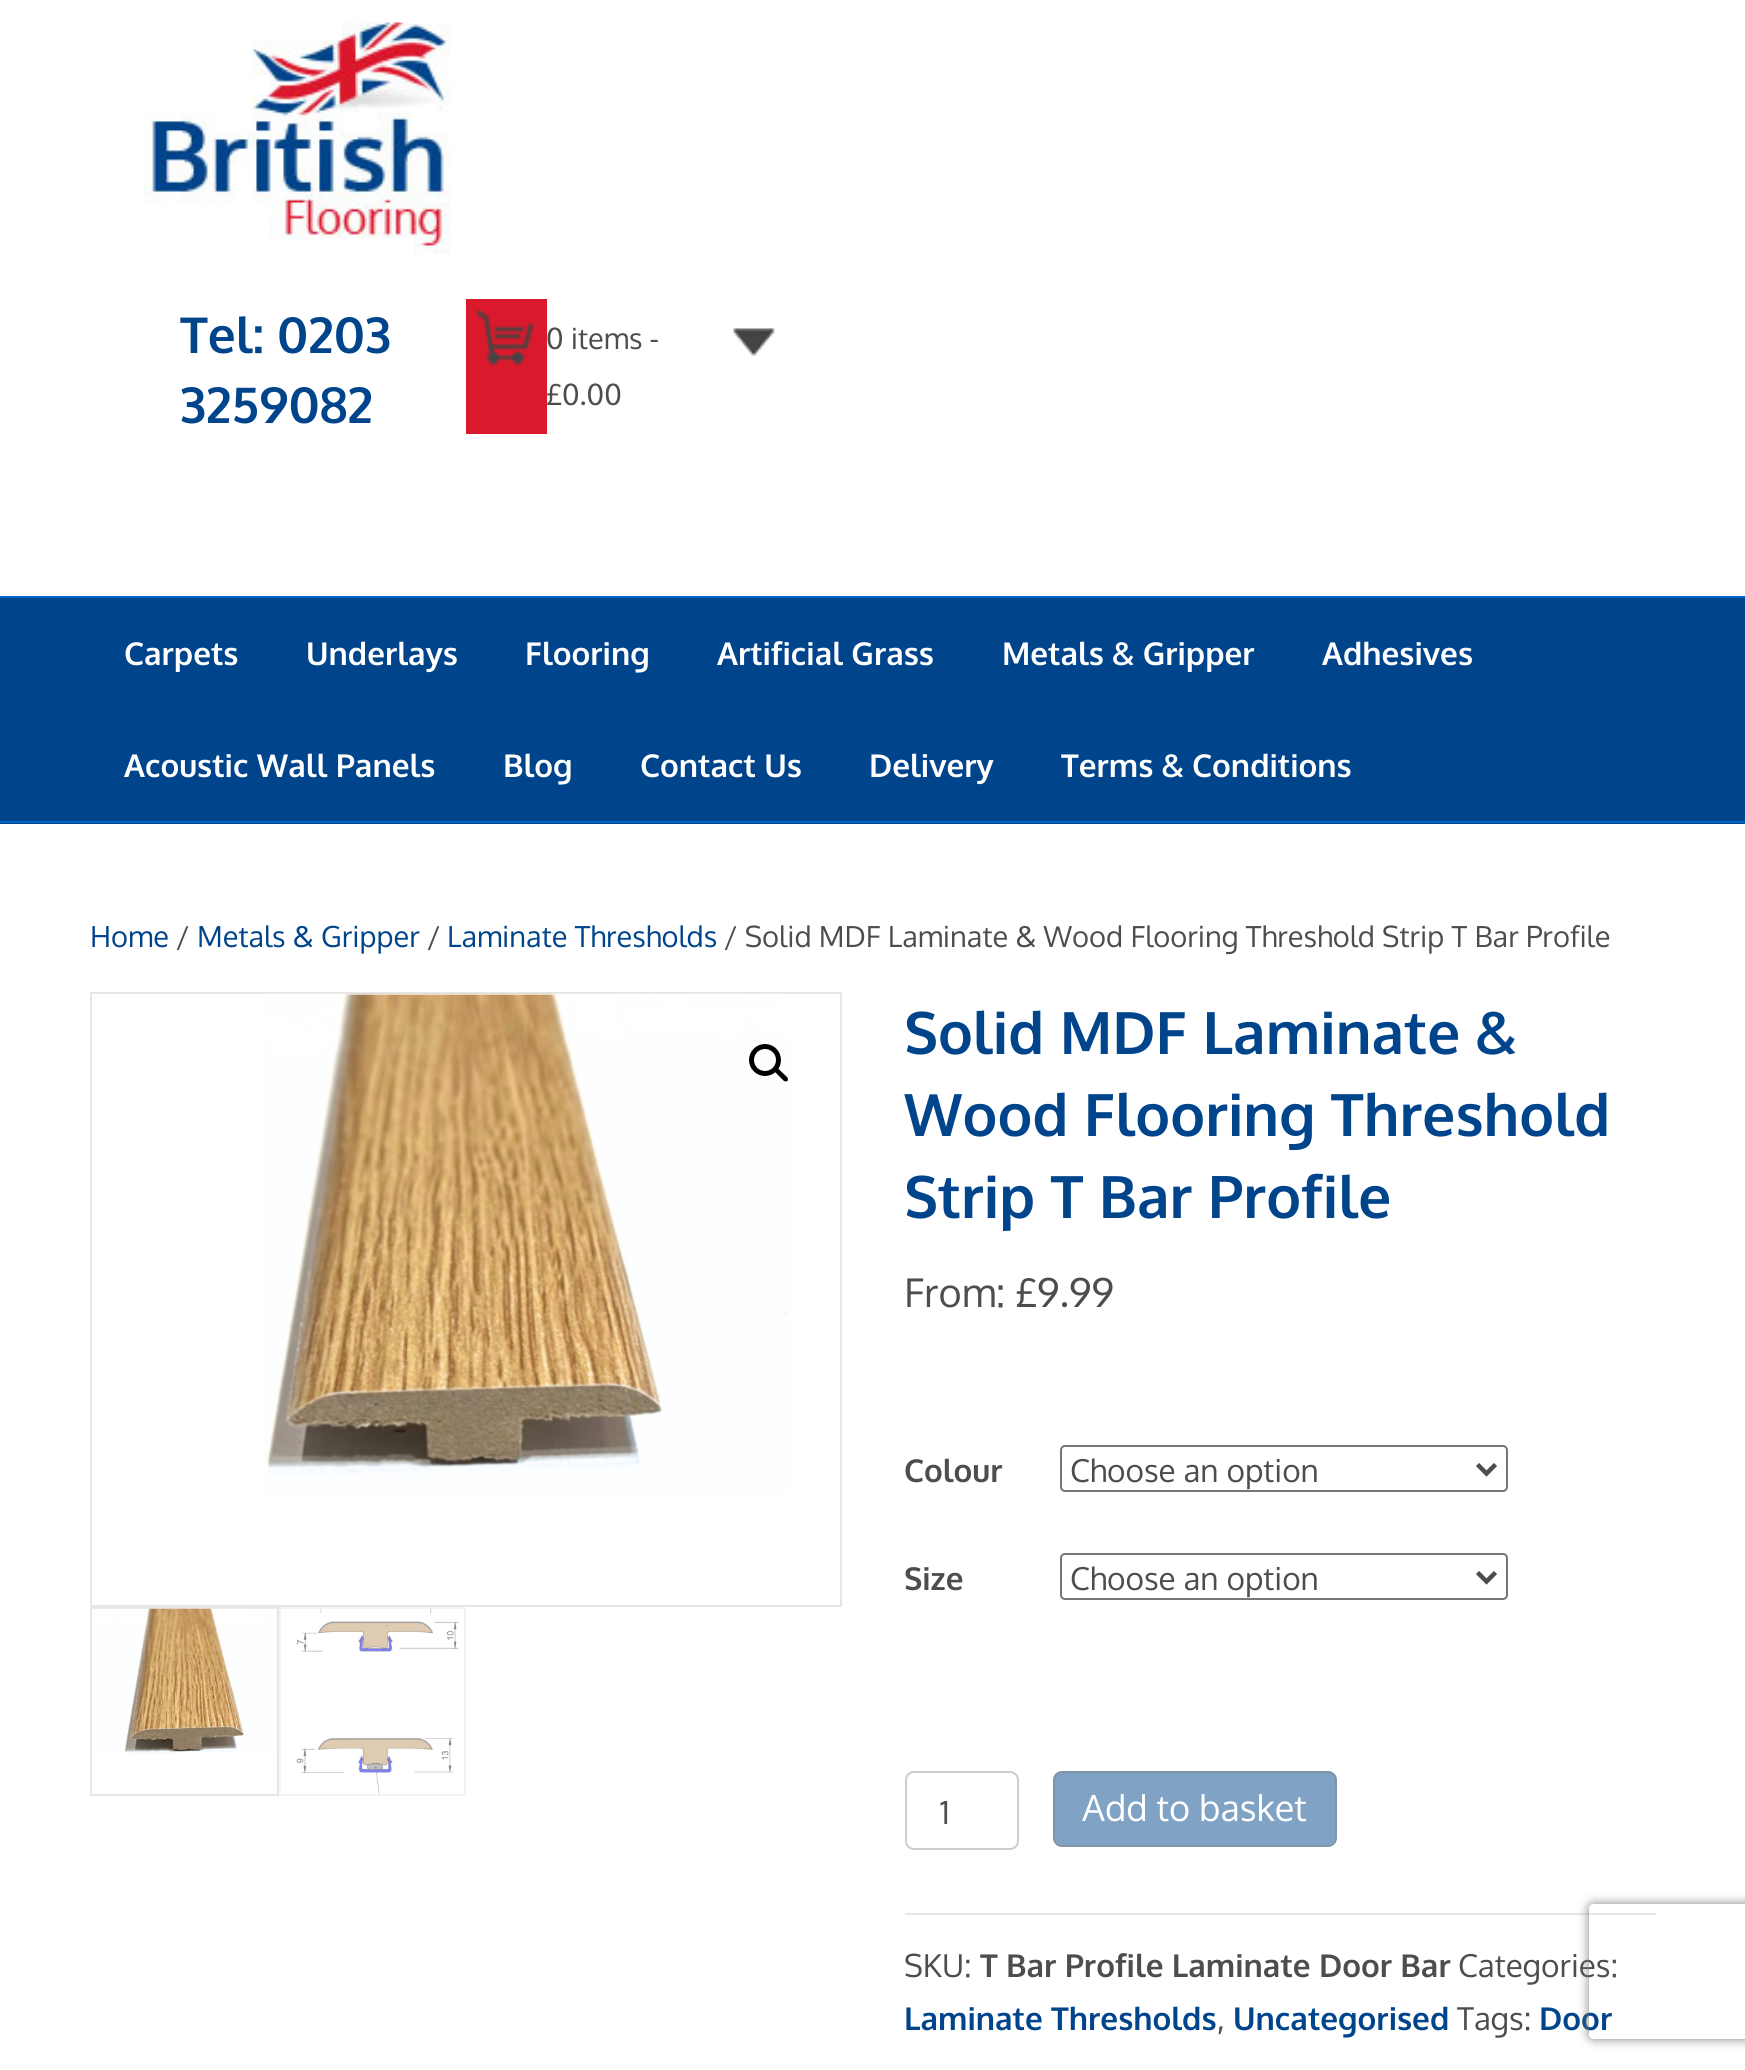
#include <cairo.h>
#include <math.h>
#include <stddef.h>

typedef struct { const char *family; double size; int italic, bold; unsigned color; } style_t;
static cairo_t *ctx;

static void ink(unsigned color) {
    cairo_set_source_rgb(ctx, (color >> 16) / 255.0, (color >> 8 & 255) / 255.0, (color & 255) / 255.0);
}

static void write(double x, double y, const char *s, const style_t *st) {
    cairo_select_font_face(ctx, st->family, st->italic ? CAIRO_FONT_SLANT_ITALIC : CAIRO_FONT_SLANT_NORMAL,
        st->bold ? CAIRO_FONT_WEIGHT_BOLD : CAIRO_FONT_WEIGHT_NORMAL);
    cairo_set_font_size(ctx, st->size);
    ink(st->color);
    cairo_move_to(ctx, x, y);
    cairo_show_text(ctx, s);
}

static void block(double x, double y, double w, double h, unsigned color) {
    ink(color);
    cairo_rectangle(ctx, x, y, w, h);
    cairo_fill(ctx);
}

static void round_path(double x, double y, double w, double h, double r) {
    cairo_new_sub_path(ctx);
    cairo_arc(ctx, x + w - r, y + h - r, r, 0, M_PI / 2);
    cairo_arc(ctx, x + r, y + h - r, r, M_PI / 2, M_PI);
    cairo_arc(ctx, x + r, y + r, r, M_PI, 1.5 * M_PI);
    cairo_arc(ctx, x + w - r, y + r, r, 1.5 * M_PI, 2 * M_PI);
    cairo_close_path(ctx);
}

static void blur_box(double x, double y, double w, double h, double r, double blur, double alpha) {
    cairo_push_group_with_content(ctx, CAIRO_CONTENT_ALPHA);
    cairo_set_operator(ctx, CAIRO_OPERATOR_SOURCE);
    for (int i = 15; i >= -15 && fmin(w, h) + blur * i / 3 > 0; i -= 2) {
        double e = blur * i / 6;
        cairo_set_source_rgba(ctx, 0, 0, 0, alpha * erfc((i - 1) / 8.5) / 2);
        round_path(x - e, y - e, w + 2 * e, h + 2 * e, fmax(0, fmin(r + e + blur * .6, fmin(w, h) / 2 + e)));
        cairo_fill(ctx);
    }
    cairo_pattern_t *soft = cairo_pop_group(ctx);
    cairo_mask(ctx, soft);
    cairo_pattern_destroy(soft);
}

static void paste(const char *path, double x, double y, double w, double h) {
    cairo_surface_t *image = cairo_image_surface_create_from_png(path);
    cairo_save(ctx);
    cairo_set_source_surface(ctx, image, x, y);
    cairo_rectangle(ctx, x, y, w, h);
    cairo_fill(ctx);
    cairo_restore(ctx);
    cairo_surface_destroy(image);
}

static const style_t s1 = {"Oxygen", 49.5, 0, 1, 0x00448b};
static const style_t s2 = {"Oxygen", 29, 0, 0, 0x4d4d4d};
static const style_t s3 = {"Oxygen", 31.5, 0, 1, 0xffffff};
static const style_t s4 = {"Oxygen", 29, 0, 0, 0x00448b};
static const style_t s5 = {"Oxygen", 58.5, 0, 1, 0x00448b};
static const style_t s6 = {"Oxygen", 39.5, 0, 0, 0x4d4d4d};
static const style_t s7 = {"Oxygen", 31.5, 0, 1, 0x4d4d4d};
static const style_t s8 = {"Oxygen", 31.5, 0, 0, 0x4d4d4d};
static const style_t s9 = {"Oxygen", 36, 0, 0, 0xffffff};
static const style_t s10 = {"Oxygen", 31.5, 0, 1, 0x00448b};

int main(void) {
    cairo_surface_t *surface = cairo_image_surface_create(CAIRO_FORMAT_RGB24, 1745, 2070);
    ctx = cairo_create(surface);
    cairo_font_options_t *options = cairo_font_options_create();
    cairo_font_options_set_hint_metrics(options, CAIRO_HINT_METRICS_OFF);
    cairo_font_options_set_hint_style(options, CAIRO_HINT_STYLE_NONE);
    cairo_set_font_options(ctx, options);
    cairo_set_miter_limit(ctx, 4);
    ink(0xffffff);
    cairo_paint(ctx);
    paste("pic1.png", 144, 22, 307, 233);
    write(180, 353, "Tel: 0203", &s1);
    write(180, 423, "3259082", &s1);
    block(466, 299, 81, 135, 0xda192c);
    paste("pic2.png", 476, 310, 58, 56);
    paste("pic3.png", 733, 328, 42, 28);
    write(546, 349, "0 items -", &s2);
    write(546, 405, "£0.00", &s2);
    block(0, 598, 1745, 226, 0x00448b);
    block(0, 596, 1745, 2, 0x0064cd);
    block(0, 821, 1745, 2, 0x0064cd);
    write(124, 665, "Carpets", &s3);
    write(306, 665, "Underlays", &s3);
    write(525, 665, "Flooring", &s3);
    write(717, 665, "Artificial Grass", &s3);
    write(1002, 665, "Metals & Gripper", &s3);
    write(1322, 665, "Adhesives", &s3);
    write(124, 777, "Acoustic Wall Panels", &s3);
    write(503, 777, "Blog", &s3);
    write(640, 777, "Contact Us", &s3);
    write(869, 777, "Delivery", &s3);
    write(1061, 777, "Terms & Conditions", &s3);
    write(90, 947, "Home", &s4);
    write(176, 947, "/", &s2);
    write(197, 947, "Metals & Gripper", &s4);
    write(427, 947, "/", &s2);
    write(447, 947, "Laminate Thresholds", &s4);
    write(724, 947, "/ Solid MDF Laminate & Wood Flooring Threshold Strip T Bar Profile", &s2);
    cairo_rectangle(ctx, 91, 993, 750, 613);
    ink(0xe6e6e6);
    cairo_stroke(ctx);
    paste("pic4.png", 262, 993, 527, 502);
    cairo_arc(ctx, 765, 1060, 13.5, 0, 2 * M_PI);
    ink(0x000000);
    cairo_set_line_width(ctx, 5);
    cairo_stroke(ctx);
    cairo_new_path(ctx);
    cairo_move_to(ctx, 774.5, 1068);
    cairo_curve_to(ctx, 775.5, 1067, 777, 1067, 777.5, 1068);
    cairo_line_to(ctx, 787.5, 1077.5);
    cairo_curve_to(ctx, 788, 1078.5, 788, 1080, 787.5, 1081);
    cairo_curve_to(ctx, 786.5, 1081.5, 785, 1081.5, 784, 1081);
    cairo_line_to(ctx, 774.5, 1071.5);
    cairo_curve_to(ctx, 773.5, 1070.5, 773.5, 1069, 774.5, 1068);
    cairo_close_path(ctx);
    cairo_fill(ctx);
    cairo_rectangle(ctx, 91, 1608, 187, 187);
    ink(0xe6e6e6);
    cairo_set_line_width(ctx, 2);
    cairo_stroke(ctx);
    paste("pic5.png", 92, 1608, 185, 146);
    cairo_rectangle(ctx, 280, 1608, 185, 187);
    ink(0xf3f3f3);
    cairo_stroke(ctx);
    paste("pic6.png", 296, 1608, 163, 186);
    write(904, 1054, "Solid MDF Laminate &", &s5);
    write(904, 1136, "Wood Flooring Threshold", &s5);
    write(904, 1218, "Strip T Bar Profile", &s5);
    write(904, 1307, "From: £9.99", &s6);
    write(904, 1482, "Colour", &s7);
    round_path(1061, 1446, 446, 45, 4);
    ink(0x767676);
    cairo_stroke(ctx);
    cairo_new_path(ctx);
    cairo_move_to(ctx, 1477.5, 1464.5);
    cairo_line_to(ctx, 1486.5, 1473.5);
    cairo_line_to(ctx, 1495.5, 1464.5);
    ink(0x4d4d4d);
    cairo_set_line_width(ctx, 4.5);
    cairo_stroke(ctx);
    write(1070, 1482, "Choose an option", &s8);
    write(904, 1590, "Size", &s7);
    round_path(1061, 1554, 446, 45, 4);
    ink(0x767676);
    cairo_set_line_width(ctx, 2);
    cairo_stroke(ctx);
    cairo_new_path(ctx);
    cairo_move_to(ctx, 1477.5, 1572.5);
    cairo_line_to(ctx, 1486.5, 1581.5);
    cairo_line_to(ctx, 1495.5, 1572.5);
    ink(0x4d4d4d);
    cairo_set_line_width(ctx, 4.5);
    cairo_stroke(ctx);
    write(1070, 1590, "Choose an option", &s8);
    round_path(906, 1772, 112, 77, 8);
    ink(0xcccccc);
    cairo_set_line_width(ctx, 2);
    cairo_stroke(ctx);
    write(940, 1824, "1", &s8);
    ink(0x80a2c5);
    round_path(1054, 1772, 282, 74, 8);
    cairo_fill_preserve(ctx);
    ink(0x8093a7);
    cairo_stroke(ctx);
    write(1082, 1821, "Add to basket", &s9);
    block(905, 1913, 751, 2, 0xe6e6e6);
    write(904, 1977, "SKU:", &s8);
    write(980, 1977, "T Bar Profile Laminate Door Bar", &s7);
    write(1458, 1977, "Categories:", &s8);
    write(904, 2030, "Laminate Thresholds", &s10);
    write(1217, 2030, ",", &s8);
    write(1233, 2030, "Uncategorised", &s10);
    write(1457, 2030, "Tags:", &s8);
    write(1539, 2030, "Door", &s10);
    cairo_save(ctx);
    cairo_set_fill_rule(ctx, CAIRO_FILL_RULE_EVEN_ODD);
    cairo_new_path(ctx);
    cairo_move_to(ctx, 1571, 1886);
    cairo_line_to(ctx, 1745, 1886);
    cairo_line_to(ctx, 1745, 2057);
    cairo_line_to(ctx, 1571, 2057);
    cairo_close_path(ctx);
    cairo_move_to(ctx, 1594, 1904);
    cairo_line_to(ctx, 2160, 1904);
    cairo_curve_to(ctx, 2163, 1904, 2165, 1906, 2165, 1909);
    cairo_line_to(ctx, 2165, 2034);
    cairo_curve_to(ctx, 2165, 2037, 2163, 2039, 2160, 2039);
    cairo_line_to(ctx, 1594, 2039);
    cairo_curve_to(ctx, 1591, 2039, 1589, 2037, 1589, 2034);
    cairo_line_to(ctx, 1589, 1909);
    cairo_curve_to(ctx, 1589, 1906, 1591, 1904, 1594, 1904);
    cairo_close_path(ctx);
    cairo_clip(ctx);
    ink(0x808080);
    blur_box(1589, 1904, 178, 135, 5, 5.5, 1);
    cairo_restore(ctx);
    cairo_surface_write_to_png(surface, "screenshot.png");
    cairo_font_options_destroy(options);
    cairo_destroy(ctx);
    cairo_surface_destroy(surface);
    return 0;
}
